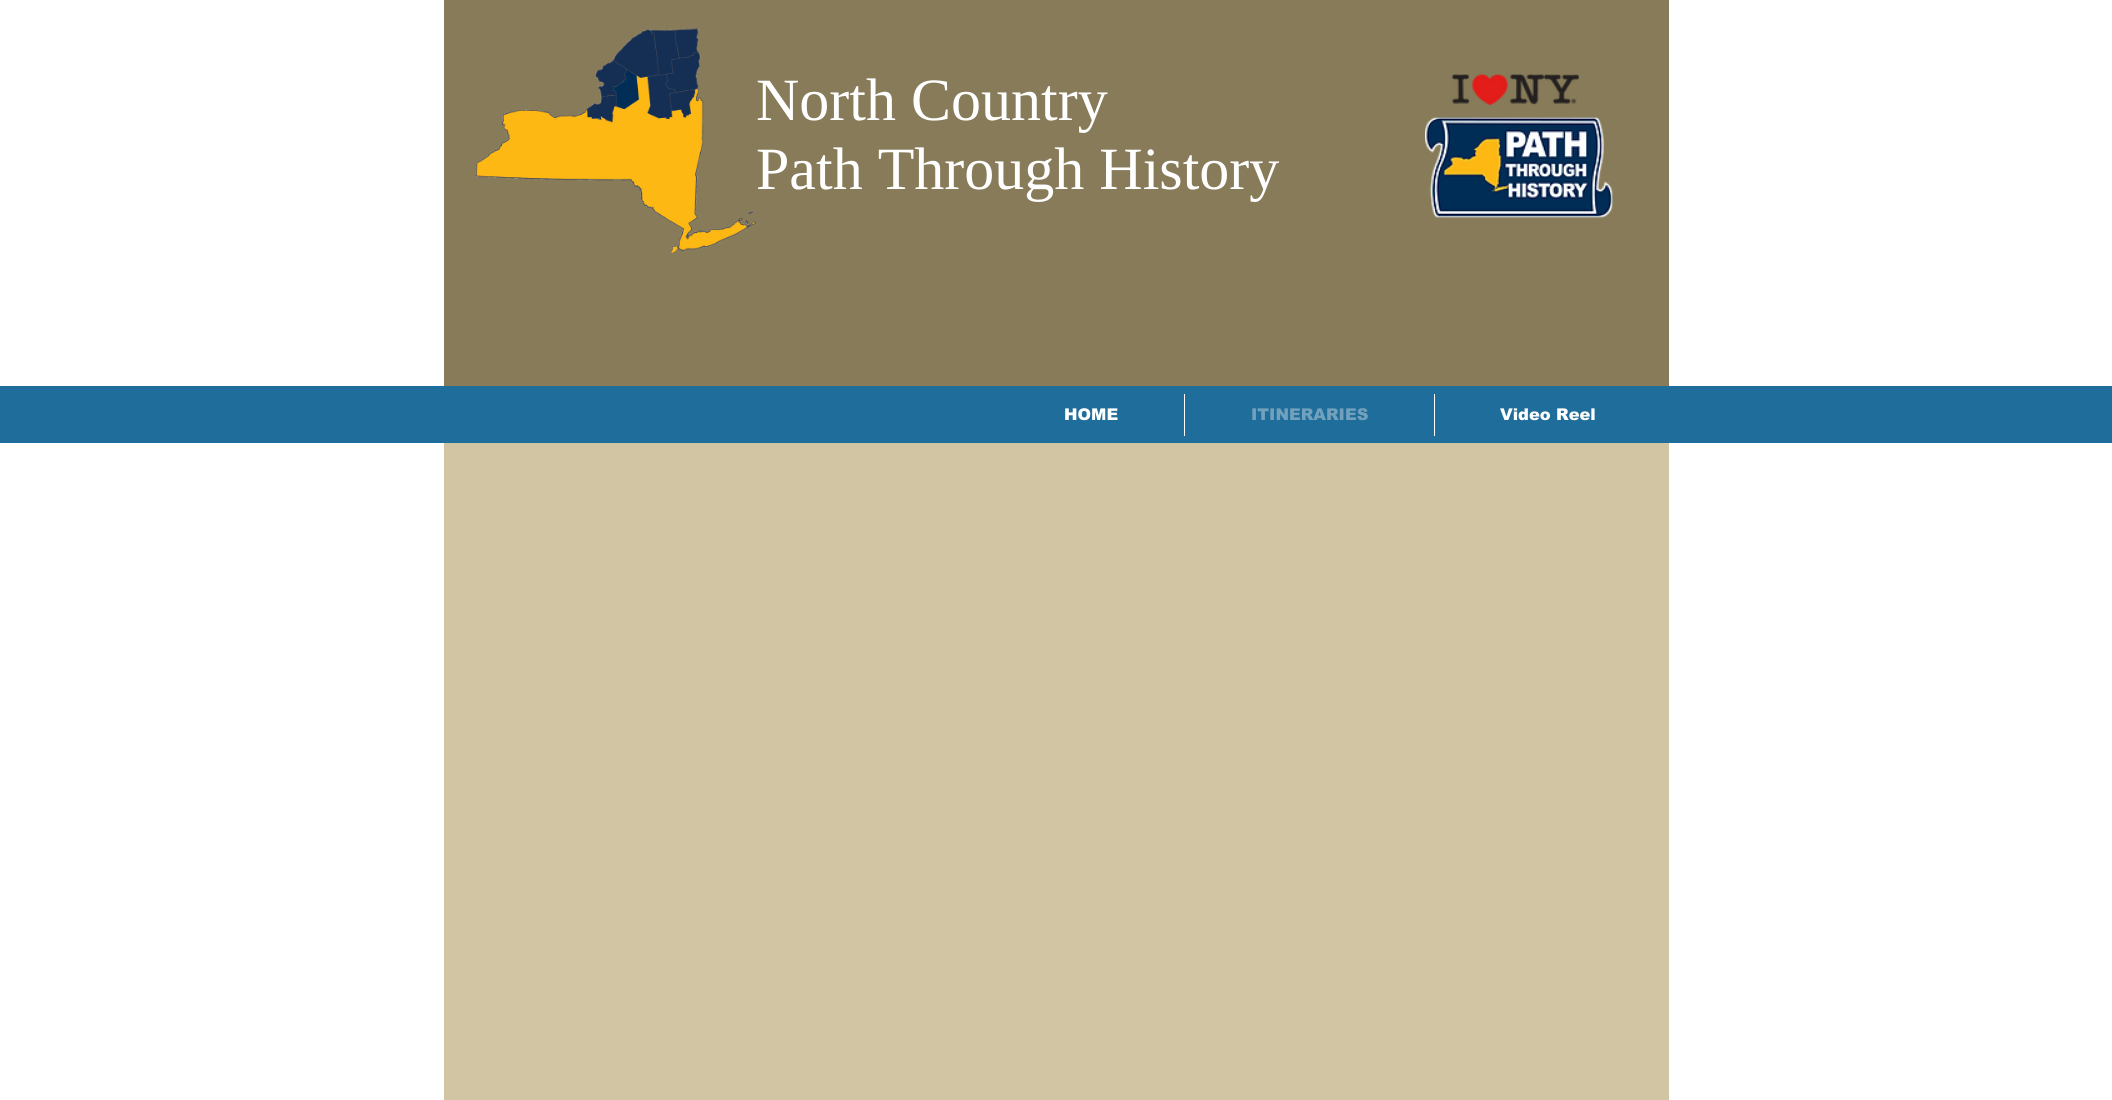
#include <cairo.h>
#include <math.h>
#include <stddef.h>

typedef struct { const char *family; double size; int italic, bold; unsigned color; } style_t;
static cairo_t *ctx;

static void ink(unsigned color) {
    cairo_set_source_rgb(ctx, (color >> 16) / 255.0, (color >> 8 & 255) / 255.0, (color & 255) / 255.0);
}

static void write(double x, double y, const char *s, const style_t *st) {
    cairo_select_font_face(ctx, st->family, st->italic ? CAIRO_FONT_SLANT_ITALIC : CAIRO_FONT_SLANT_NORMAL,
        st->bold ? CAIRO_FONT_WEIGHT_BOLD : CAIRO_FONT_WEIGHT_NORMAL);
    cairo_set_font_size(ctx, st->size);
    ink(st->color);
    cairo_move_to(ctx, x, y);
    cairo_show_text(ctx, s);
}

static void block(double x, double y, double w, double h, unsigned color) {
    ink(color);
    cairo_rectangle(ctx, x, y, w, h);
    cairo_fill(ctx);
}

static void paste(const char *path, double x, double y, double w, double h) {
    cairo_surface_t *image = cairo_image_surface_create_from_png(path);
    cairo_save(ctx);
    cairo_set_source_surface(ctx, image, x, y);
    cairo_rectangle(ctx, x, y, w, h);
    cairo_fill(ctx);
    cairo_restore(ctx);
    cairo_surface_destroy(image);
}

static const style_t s1 = {"Liberation Serif", 60, 0, 0, 0xffffff};
static const style_t s2 = {"arial Black", 16.25, 0, 0, 0xffffff};
static const style_t s3 = {"arial Black", 16.25, 0, 0, 0x71a1bc};

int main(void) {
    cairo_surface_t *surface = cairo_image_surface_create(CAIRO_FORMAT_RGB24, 2112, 1100);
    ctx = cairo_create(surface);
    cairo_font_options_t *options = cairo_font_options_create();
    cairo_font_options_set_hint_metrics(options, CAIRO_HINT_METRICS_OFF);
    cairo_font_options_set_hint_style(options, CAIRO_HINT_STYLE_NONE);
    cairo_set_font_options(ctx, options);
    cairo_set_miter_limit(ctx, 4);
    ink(0xffffff);
    cairo_paint(ctx);
    block(444, 0, 1225, 386, 0x877b59);
    paste("pic1.png", 475, 28, 282, 227);
    paste("pic2.png", 1452, 74, 127, 31);
    paste("pic3.png", 1425, 117, 188, 101);
    write(756, 120, "North Country", &s1);
    write(756, 189, "Path Through History", &s1);
    block(0, 386, 2112, 57, 0x1f6d9b);
    write(1064, 420, "HOME", &s2);
    block(1184, 394, 1, 42, 0xffffff);
    write(1251, 420, "ITINERARIES", &s3);
    block(1434, 394, 1, 42, 0xffffff);
    write(1500, 420, "Video Reel", &s2);
    block(444, 443, 1225, 657, 0xd2c5a3);
    cairo_surface_write_to_png(surface, "screenshot.png");
    cairo_font_options_destroy(options);
    cairo_destroy(ctx);
    cairo_surface_destroy(surface);
    return 0;
}
